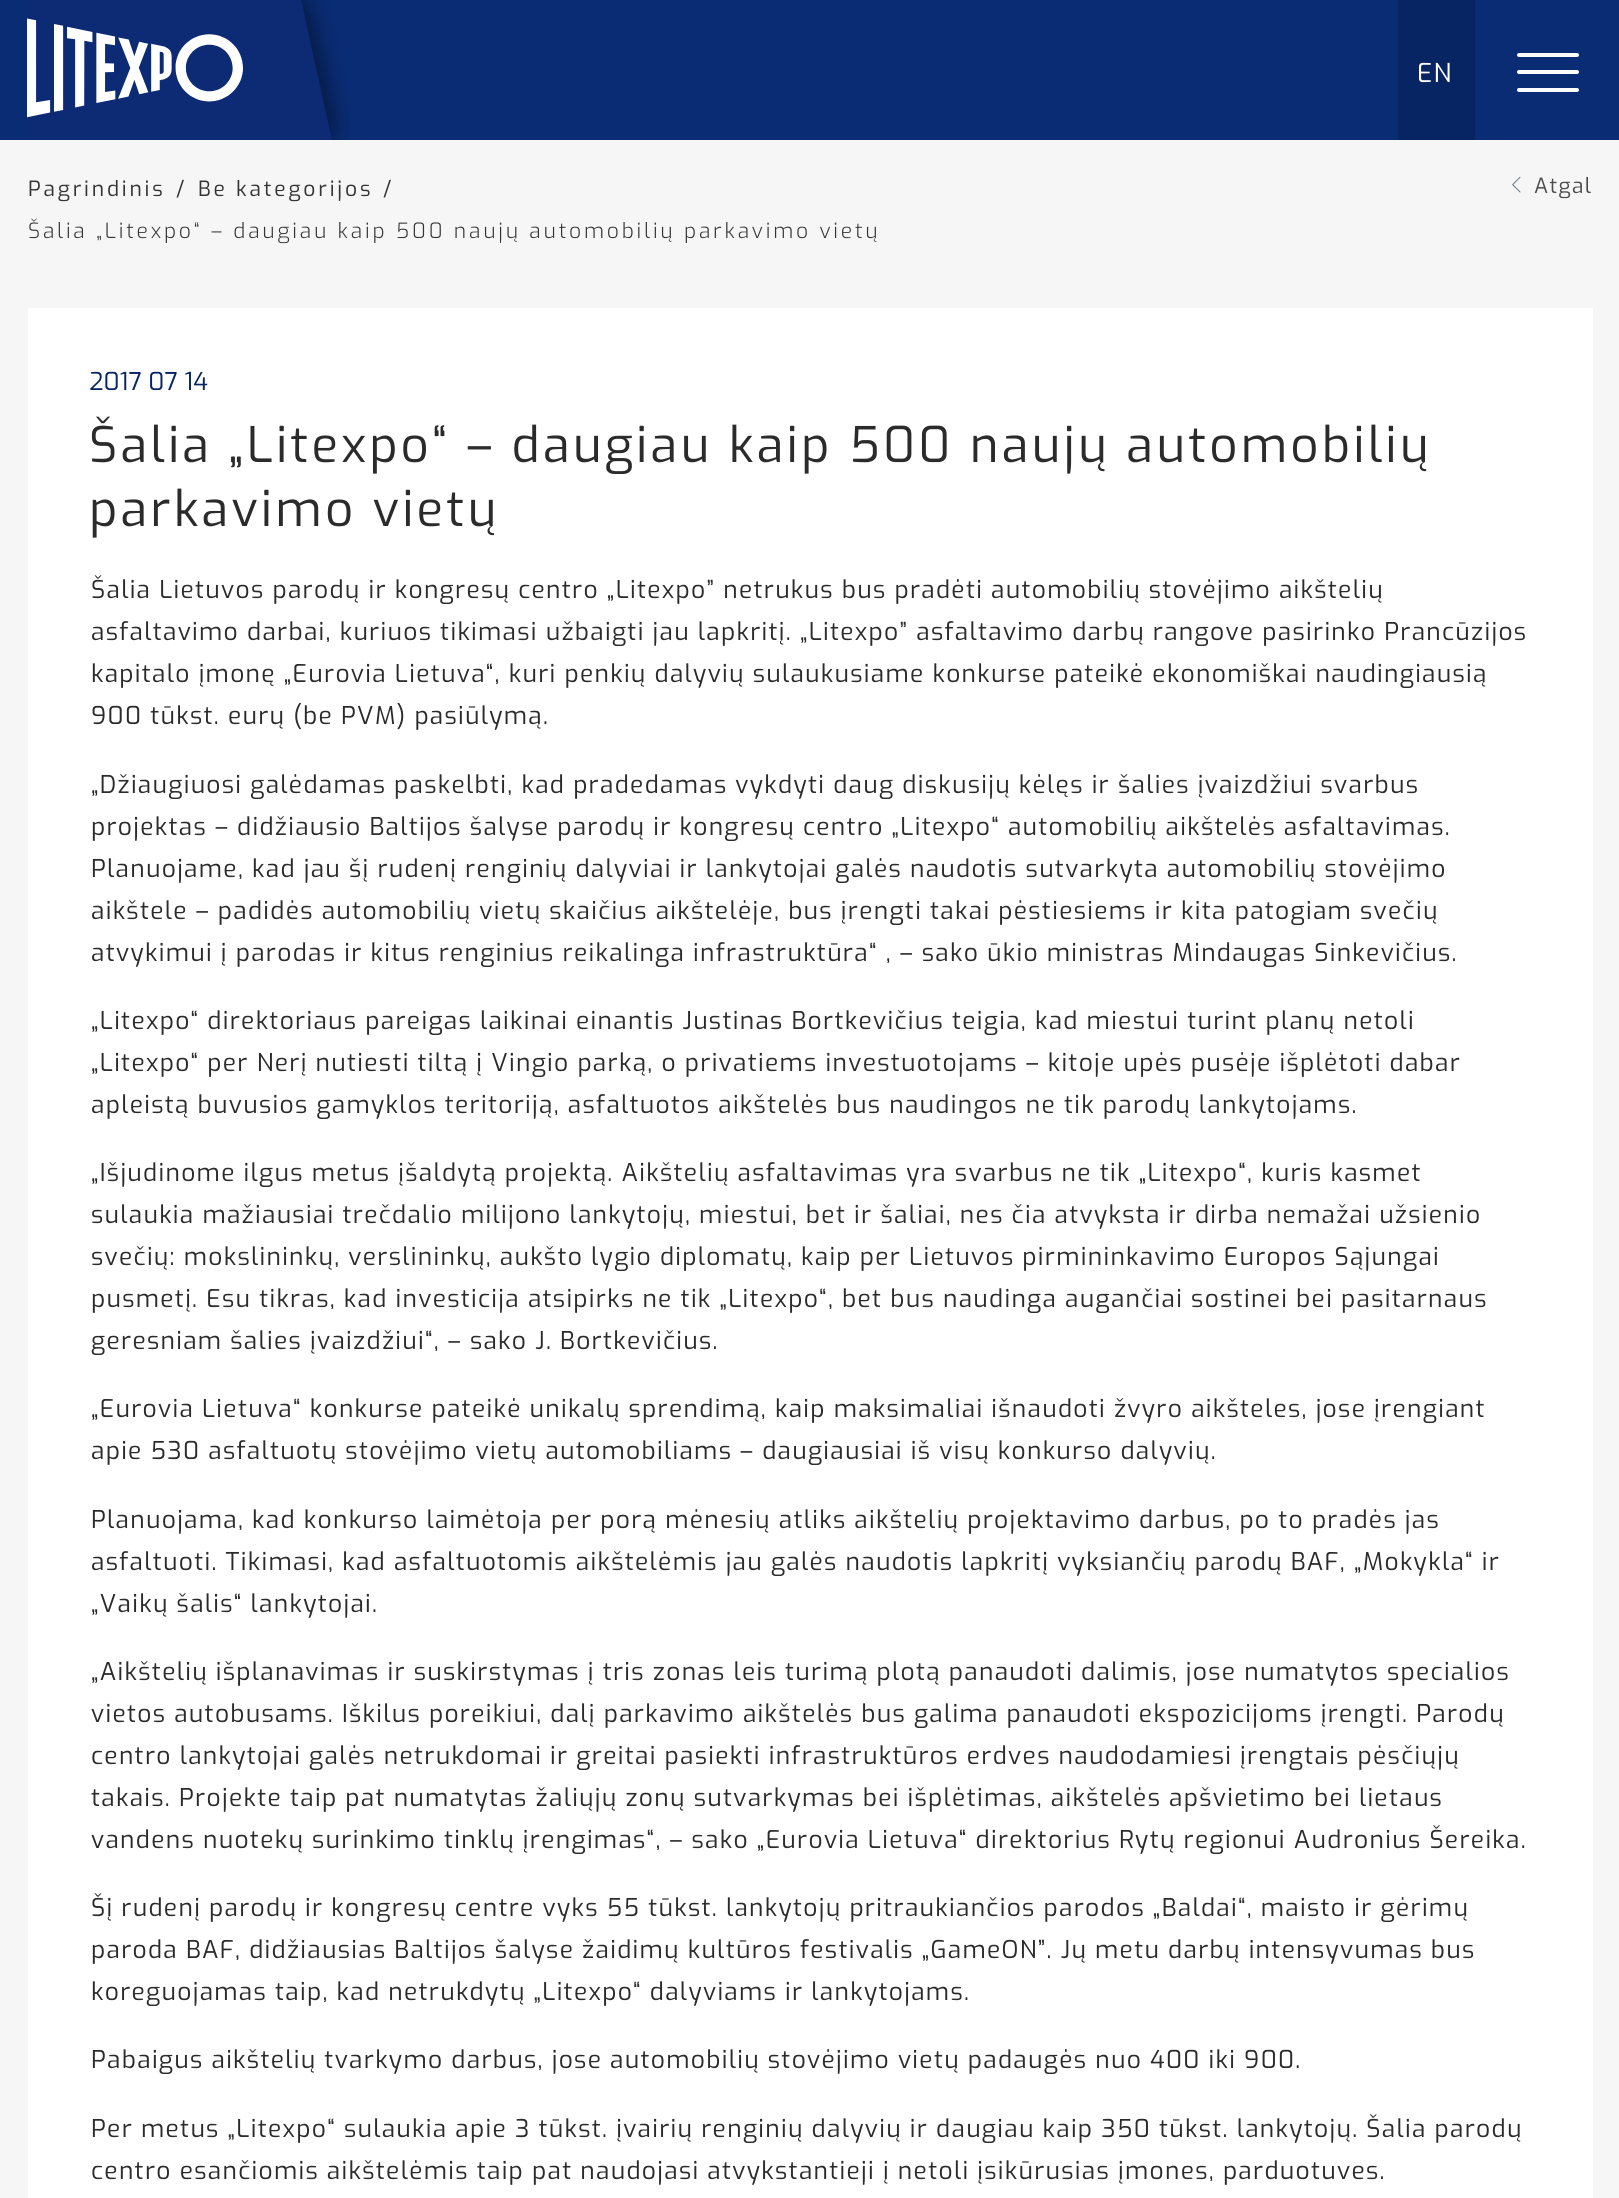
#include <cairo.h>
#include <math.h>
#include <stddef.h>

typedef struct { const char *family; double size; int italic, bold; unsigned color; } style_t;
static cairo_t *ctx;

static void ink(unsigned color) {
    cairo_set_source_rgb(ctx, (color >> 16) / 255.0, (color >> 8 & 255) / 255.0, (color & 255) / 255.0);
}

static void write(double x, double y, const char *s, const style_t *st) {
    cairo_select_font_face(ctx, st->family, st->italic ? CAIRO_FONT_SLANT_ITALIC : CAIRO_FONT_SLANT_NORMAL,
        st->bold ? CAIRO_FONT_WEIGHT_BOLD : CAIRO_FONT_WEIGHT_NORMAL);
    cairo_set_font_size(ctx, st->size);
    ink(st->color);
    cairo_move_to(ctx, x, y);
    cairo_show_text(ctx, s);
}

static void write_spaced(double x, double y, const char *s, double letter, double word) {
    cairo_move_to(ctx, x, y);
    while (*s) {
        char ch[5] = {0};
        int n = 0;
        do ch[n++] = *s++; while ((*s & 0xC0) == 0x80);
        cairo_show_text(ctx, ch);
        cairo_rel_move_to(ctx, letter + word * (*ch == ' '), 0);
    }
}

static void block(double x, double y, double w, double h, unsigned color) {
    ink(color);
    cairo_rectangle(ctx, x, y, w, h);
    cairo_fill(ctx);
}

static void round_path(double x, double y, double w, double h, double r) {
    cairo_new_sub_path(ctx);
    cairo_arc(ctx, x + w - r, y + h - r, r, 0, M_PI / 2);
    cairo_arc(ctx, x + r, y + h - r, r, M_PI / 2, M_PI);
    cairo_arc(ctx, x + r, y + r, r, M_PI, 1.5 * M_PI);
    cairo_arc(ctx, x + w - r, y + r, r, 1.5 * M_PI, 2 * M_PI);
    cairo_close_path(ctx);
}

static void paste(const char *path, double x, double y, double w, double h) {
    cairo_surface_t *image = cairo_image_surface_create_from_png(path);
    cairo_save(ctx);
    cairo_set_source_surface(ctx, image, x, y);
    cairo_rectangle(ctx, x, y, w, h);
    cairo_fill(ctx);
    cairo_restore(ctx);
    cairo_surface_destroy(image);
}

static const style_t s1 = {"Exo", 24.5, 0, 0, 0x072563};

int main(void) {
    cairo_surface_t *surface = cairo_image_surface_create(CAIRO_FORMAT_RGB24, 1619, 2198);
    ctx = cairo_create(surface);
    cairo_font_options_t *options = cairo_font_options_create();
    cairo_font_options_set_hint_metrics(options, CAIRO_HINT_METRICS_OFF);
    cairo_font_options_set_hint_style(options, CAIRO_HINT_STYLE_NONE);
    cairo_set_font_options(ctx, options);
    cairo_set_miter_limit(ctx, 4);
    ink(0xf6f6f6);
    cairo_paint(ctx);
    block(0, 0, 1619, 140, 0x0a2c74);
    paste("pic1.png", 27, 0, 323, 140);
    block(1398, 0, 77, 140, 0x072563);
    cairo_select_font_face(ctx, "Exo", CAIRO_FONT_SLANT_NORMAL, CAIRO_FONT_WEIGHT_NORMAL);
    cairo_set_font_size(ctx, 26);
    ink(0xffffff);
    write_spaced(1417, 82, "EN", 1.31, 0);
    round_path(1517, 53, 62, 4, 2);
    cairo_fill(ctx);
    round_path(1517, 70, 62, 4, 2);
    cairo_fill(ctx);
    round_path(1517, 88, 62, 4, 2);
    cairo_fill(ctx);
    cairo_set_font_size(ctx, 21);
    ink(0x353434);
    write_spaced(28, 196, "Pagrindinis", 2.8, 0);
    write_spaced(176, 196, "/", 2.8, 0);
    write_spaced(198, 196, "Be kategorijos", 2.8, 0);
    write_spaced(383, 196, "/", 2.8, 0);
    cairo_select_font_face(ctx, "Exo Light", CAIRO_FONT_SLANT_NORMAL, CAIRO_FONT_WEIGHT_NORMAL);
    write_spaced(28, 238, "Šalia „Litexpo“ – daugiau kaip 500 naujų automobilių parkavimo vietų", 2.8, 0);
    paste("pic2.png", 1512, 176, 9, 17);
    cairo_select_font_face(ctx, "Exo", CAIRO_FONT_SLANT_NORMAL, CAIRO_FONT_WEIGHT_NORMAL);
    ink(0x4c4c4c);
    write_spaced(1534, 193, "Atgal", 1.31, 0);
    block(28, 308, 1565, 1890, 0xffffff);
    write(89, 390, "2017 07 14", &s1);
    cairo_set_font_size(ctx, 49);
    ink(0x2b2b2b);
    write_spaced(89, 462, "Šalia „Litexpo“ – daugiau kaip 500 naujų automobilių", 3.15, 0);
    write_spaced(89, 526, "parkavimo vietų", 3.15, 0);
    cairo_set_font_size(ctx, 24.5);
    write_spaced(91, 598, "Šalia Lietuvos parodų ir kongresų centro „Litexpo” netrukus bus pradėti automobilių stovėjimo aikštelių", 1.31, 0);
    write_spaced(91, 640, "asfaltavimo darbai, kuriuos tikimasi užbaigti jau lapkritį. „Litexpo” asfaltavimo darbų rangove pasirinko Prancūzijos", 1.31, 0);
    write_spaced(91, 682, "kapitalo įmonę „Eurovia Lietuva“, kuri penkių dalyvių sulaukusiame konkurse pateikė ekonomiškai naudingiausią", 1.31, 0);
    write_spaced(91, 724, "900 tūkst. eurų (be PVM) pasiūlymą.", 1.31, 0);
    write_spaced(91, 793, "„Džiaugiuosi galėdamas paskelbti, kad pradedamas vykdyti daug diskusijų kėlęs ir šalies įvaizdžiui svarbus", 1.31, 0);
    write_spaced(91, 835, "projektas – didžiausio Baltijos šalyse parodų ir kongresų centro „Litexpo“ automobilių aikštelės asfaltavimas.", 1.31, 0);
    write_spaced(91, 877, "Planuojame, kad jau šį rudenį renginių dalyviai ir lankytojai galės naudotis sutvarkyta automobilių stovėjimo", 1.31, 0);
    write_spaced(91, 919, "aikštele – padidės automobilių vietų skaičius aikštelėje, bus įrengti takai pėstiesiems ir kita patogiam svečių", 1.31, 0);
    write_spaced(91, 961, "atvykimui į parodas ir kitus renginius reikalinga infrastruktūra“ , – sako ūkio ministras Mindaugas Sinkevičius.", 1.31, 0);
    write_spaced(91, 1029, "„Litexpo“ direktoriaus pareigas laikinai einantis Justinas Bortkevičius teigia, kad miestui turint planų netoli", 1.31, 0);
    write_spaced(91, 1071, "„Litexpo“ per Nerį nutiesti tiltą į Vingio parką, o privatiems investuotojams – kitoje upės pusėje išplėtoti dabar", 1.31, 0);
    write_spaced(91, 1113, "apleistą buvusios gamyklos teritoriją, asfaltuotos aikštelės bus naudingos ne tik parodų lankytojams.", 1.31, 0);
    write_spaced(91, 1181, "„Išjudinome ilgus metus įšaldytą projektą. Aikštelių asfaltavimas yra svarbus ne tik „Litexpo“, kuris kasmet", 1.31, 0);
    write_spaced(91, 1223, "sulaukia mažiausiai trečdalio milijono lankytojų, miestui, bet ir šaliai, nes čia atvyksta ir dirba nemažai užsienio", 1.31, 0);
    write_spaced(91, 1265, "svečių: mokslininkų, verslininkų, aukšto lygio diplomatų, kaip per Lietuvos pirmininkavimo Europos Sąjungai", 1.31, 0);
    write_spaced(91, 1307, "pusmetį. Esu tikras, kad investicija atsipirks ne tik „Litexpo“, bet bus naudinga augančiai sostinei bei pasitarnaus", 1.31, 0);
    write_spaced(91, 1349, "geresniam šalies įvaizdžiui“, – sako J. Bortkevičius.", 1.31, 0);
    write_spaced(91, 1417, "„Eurovia Lietuva“ konkurse pateikė unikalų sprendimą, kaip maksimaliai išnaudoti žvyro aikšteles, jose įrengiant", 1.31, 0);
    write_spaced(91, 1459, "apie 530 asfaltuotų stovėjimo vietų automobiliams – daugiausiai iš visų konkurso dalyvių.", 1.31, 0);
    write_spaced(91, 1528, "Planuojama, kad konkurso laimėtoja per porą mėnesių atliks aikštelių projektavimo darbus, po to pradės jas", 1.31, 0);
    write_spaced(91, 1570, "asfaltuoti. Tikimasi, kad asfaltuotomis aikštelėmis jau galės naudotis lapkritį vyksiančių parodų BAF, „Mokykla“ ir", 1.31, 0);
    write_spaced(91, 1612, "„Vaikų šalis“ lankytojai.", 1.31, 0);
    write_spaced(91, 1680, "„Aikštelių išplanavimas ir suskirstymas į tris zonas leis turimą plotą panaudoti dalimis, jose numatytos specialios", 1.31, 0);
    write_spaced(91, 1722, "vietos autobusams. Iškilus poreikiui, dalį parkavimo aikštelės bus galima panaudoti ekspozicijoms įrengti. Parodų", 1.31, 0);
    write_spaced(91, 1764, "centro lankytojai galės netrukdomai ir greitai pasiekti infrastruktūros erdves naudodamiesi įrengtais pėsčiųjų", 1.31, 0);
    write_spaced(91, 1806, "takais. Projekte taip pat numatytas žaliųjų zonų sutvarkymas bei išplėtimas, aikštelės apšvietimo bei lietaus", 1.31, 0);
    write_spaced(91, 1848, "vandens nuotekų surinkimo tinklų įrengimas“, – sako „Eurovia Lietuva“ direktorius Rytų regionui Audronius Šereika.", 1.31, 0);
    write_spaced(91, 1916, "Šį rudenį parodų ir kongresų centre vyks 55 tūkst. lankytojų pritraukiančios parodos „Baldai“, maisto ir gėrimų", 1.31, 0);
    write_spaced(91, 1958, "paroda BAF, didžiausias Baltijos šalyse žaidimų kultūros festivalis „GameON”. Jų metu darbų intensyvumas bus", 1.31, 0);
    write_spaced(91, 2000, "koreguojamas taip, kad netrukdytų „Litexpo“ dalyviams ir lankytojams.", 1.31, 0);
    write_spaced(91, 2068, "Pabaigus aikštelių tvarkymo darbus, jose automobilių stovėjimo vietų padaugės nuo 400 iki 900.", 1.31, 0);
    write_spaced(91, 2137, "Per metus „Litexpo“ sulaukia apie 3 tūkst. įvairių renginių dalyvių ir daugiau kaip 350 tūkst. lankytojų. Šalia parodų", 1.31, 0);
    write_spaced(91, 2179, "centro esančiomis aikštelėmis taip pat naudojasi atvykstantieji į netoli įsikūrusias įmones, parduotuves.", 1.31, 0);
    cairo_surface_write_to_png(surface, "screenshot.png");
    cairo_font_options_destroy(options);
    cairo_destroy(ctx);
    cairo_surface_destroy(surface);
    return 0;
}
